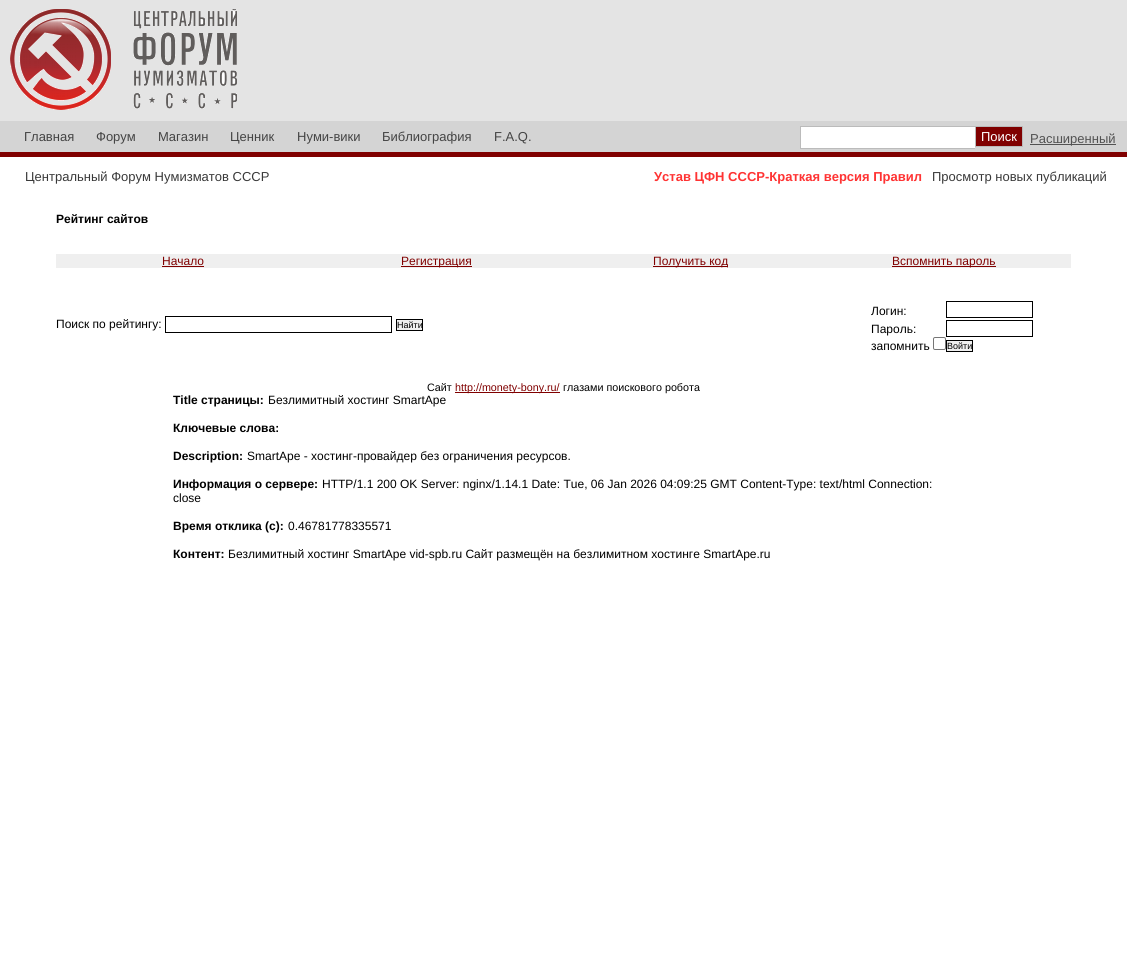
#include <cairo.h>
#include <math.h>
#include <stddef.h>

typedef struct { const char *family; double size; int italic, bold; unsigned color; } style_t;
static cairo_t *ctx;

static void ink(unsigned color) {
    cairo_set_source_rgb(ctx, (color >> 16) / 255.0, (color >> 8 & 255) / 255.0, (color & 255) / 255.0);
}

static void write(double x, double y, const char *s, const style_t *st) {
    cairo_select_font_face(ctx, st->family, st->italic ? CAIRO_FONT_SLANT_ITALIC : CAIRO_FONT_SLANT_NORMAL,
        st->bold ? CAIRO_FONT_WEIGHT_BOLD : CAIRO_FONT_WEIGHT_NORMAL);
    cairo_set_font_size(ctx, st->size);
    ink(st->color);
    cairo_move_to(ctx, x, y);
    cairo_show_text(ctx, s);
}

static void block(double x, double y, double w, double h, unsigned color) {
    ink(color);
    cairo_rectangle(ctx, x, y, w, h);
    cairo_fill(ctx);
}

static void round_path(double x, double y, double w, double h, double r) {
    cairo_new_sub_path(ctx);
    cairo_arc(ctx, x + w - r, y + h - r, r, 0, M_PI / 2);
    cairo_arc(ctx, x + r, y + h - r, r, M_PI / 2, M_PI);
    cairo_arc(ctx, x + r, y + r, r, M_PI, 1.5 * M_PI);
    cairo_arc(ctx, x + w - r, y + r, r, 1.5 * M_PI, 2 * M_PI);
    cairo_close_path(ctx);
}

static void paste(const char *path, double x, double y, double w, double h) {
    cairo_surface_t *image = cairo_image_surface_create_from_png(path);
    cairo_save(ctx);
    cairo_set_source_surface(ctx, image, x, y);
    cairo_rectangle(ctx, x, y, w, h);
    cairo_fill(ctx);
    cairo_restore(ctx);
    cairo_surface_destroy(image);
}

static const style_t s1 = {"Liberation Sans", 13, 0, 0, 0x444444};
static const style_t s2 = {"Liberation Sans", 13, 0, 0, 0xffffff};
static const style_t s3 = {"Liberation Sans", 13, 0, 0, 0x525252};
static const style_t s4 = {"Liberation Sans", 13, 0, 0, 0x393939};
static const style_t s5 = {"Liberation Sans", 13, 0, 1, 0xff3333};
static const style_t s6 = {"Liberation Sans", 12, 0, 1, 0x000000};
static const style_t s7 = {"Liberation Sans", 12, 0, 0, 0x800000};
static const style_t s8 = {"Liberation Sans", 12, 0, 0, 0x000000};
static const style_t s9 = {"Liberation Sans", 9, 0, 0, 0x000000};
static const style_t s10 = {"Liberation Sans", 10.75, 0, 0, 0x000000};
static const style_t s11 = {"Liberation Sans", 10.75, 0, 0, 0x800000};

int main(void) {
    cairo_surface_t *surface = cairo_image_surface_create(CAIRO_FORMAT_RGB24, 1127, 964);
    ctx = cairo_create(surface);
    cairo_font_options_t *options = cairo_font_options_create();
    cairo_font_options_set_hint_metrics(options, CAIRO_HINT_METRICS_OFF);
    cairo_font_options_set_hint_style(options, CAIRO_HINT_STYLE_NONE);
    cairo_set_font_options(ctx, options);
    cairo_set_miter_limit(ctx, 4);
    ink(0xffffff);
    cairo_paint(ctx);
    block(0, 0, 1127, 121, 0xe4e4e4);
    paste("pic1.png", 10, 9, 227, 101);
    block(0, 121, 1127, 31, 0xd4d4d4);
    block(0, 152, 1127, 5, 0x800000);
    write(24, 141, "Главная", &s1);
    write(96, 141, "Форум", &s1);
    write(158, 141, "Магазин", &s1);
    write(230, 141, "Ценник", &s1);
    write(297, 141, "Нуми-вики", &s1);
    write(382, 141, "Библиография", &s1);
    write(494, 141, "F.A.Q.", &s1);
    block(801, 127, 174, 21, 0xffffff);
    block(800, 126, 175, 1, 0xbbbbbb);
    block(800, 148, 175, 1, 0xbbbbbb);
    block(800, 126, 1, 23, 0xbbbbbb);
    ink(0x800000);
    cairo_rectangle(ctx, 975.5, 126.5, 47, 20);
    cairo_fill_preserve(ctx);
    ink(0xbbbbbb);
    cairo_set_line_width(ctx, 1);
    cairo_stroke(ctx);
    write(981, 141, "Поиск", &s2);
    block(1030, 144, 86, 1, 0x525252);
    write(1030, 143, "Расширенный", &s3);
    write(25, 181, "Центральный Форум Нумизматов СССР", &s4);
    write(654, 181, "Устав ЦФН СССР-Краткая версия Правил", &s5);
    write(932, 181, "Просмотр новых публикаций", &s4);
    write(56, 223, "Рейтинг сайтов", &s6);
    block(56, 254, 1015, 14, 0xefefef);
    write(162, 265, "Начало", &s7);
    block(162, 266, 42, 1, 0x800000);
    block(401, 266, 71, 1, 0x800000);
    write(401, 265, "Регистрация", &s7);
    block(653, 266, 75, 1, 0x800000);
    write(653, 265, "Получить код", &s7);
    block(892, 266, 104, 1, 0x800000);
    write(892, 265, "Вспомнить пароль", &s7);
    write(56, 328, "Поиск по рейтингу:", &s8);
    cairo_rectangle(ctx, 165.5, 316.5, 226, 16);
    cairo_stroke(ctx);
    ink(0xefefef);
    cairo_rectangle(ctx, 396.5, 319.5, 26, 11);
    cairo_fill_preserve(ctx);
    ink(0x000000);
    cairo_stroke(ctx);
    write(397, 328, "Найти", &s9);
    write(871, 315, "Логин:", &s8);
    cairo_rectangle(ctx, 946.5, 301.5, 86, 16);
    cairo_stroke(ctx);
    write(871, 333, "Пароль:", &s8);
    cairo_rectangle(ctx, 946.5, 320.5, 86, 16);
    cairo_stroke(ctx);
    write(871, 350, "запомнить", &s8);
    round_path(933.5, 337.5, 12, 12, 1.5);
    ink(0x767676);
    cairo_stroke(ctx);
    ink(0xefefef);
    cairo_rectangle(ctx, 946.5, 340.5, 26, 11);
    cairo_fill_preserve(ctx);
    ink(0x000000);
    cairo_stroke(ctx);
    write(947, 349, "Войти", &s9);
    write(427, 391, "Сайт", &s10);
    block(455, 392, 105, 1, 0x800000);
    write(455, 391, "http://monety-bony.ru/", &s11);
    write(563, 391, "глазами поискового робота", &s10);
    write(173, 404, "Title страницы:", &s6);
    write(268, 404, "Безлимитный хостинг SmartApe", &s8);
    write(173, 432, "Ключевые слова:", &s6);
    write(173, 460, "Description:", &s6);
    write(247, 460, "SmartApe - хостинг-провайдер без ограничения ресурсов.", &s8);
    write(173, 488, "Информация о сервере:", &s6);
    write(322, 488, "HTTP/1.1 200 OK Server: nginx/1.14.1 Date: Tue, 06 Jan 2026 04:09:25 GMT Content-Type: text/html Connection:", &s8);
    write(173, 502, "close", &s8);
    write(173, 530, "Время отклика (с):", &s6);
    write(288, 530, "0.46781778335571", &s8);
    write(173, 558, "Контент:", &s6);
    write(228, 558, "Безлимитный хостинг SmartApe vid-spb.ru Сайт размещён на безлимитном хостинге SmartApe.ru", &s8);
    cairo_surface_write_to_png(surface, "screenshot.png");
    cairo_font_options_destroy(options);
    cairo_destroy(ctx);
    cairo_surface_destroy(surface);
    return 0;
}
